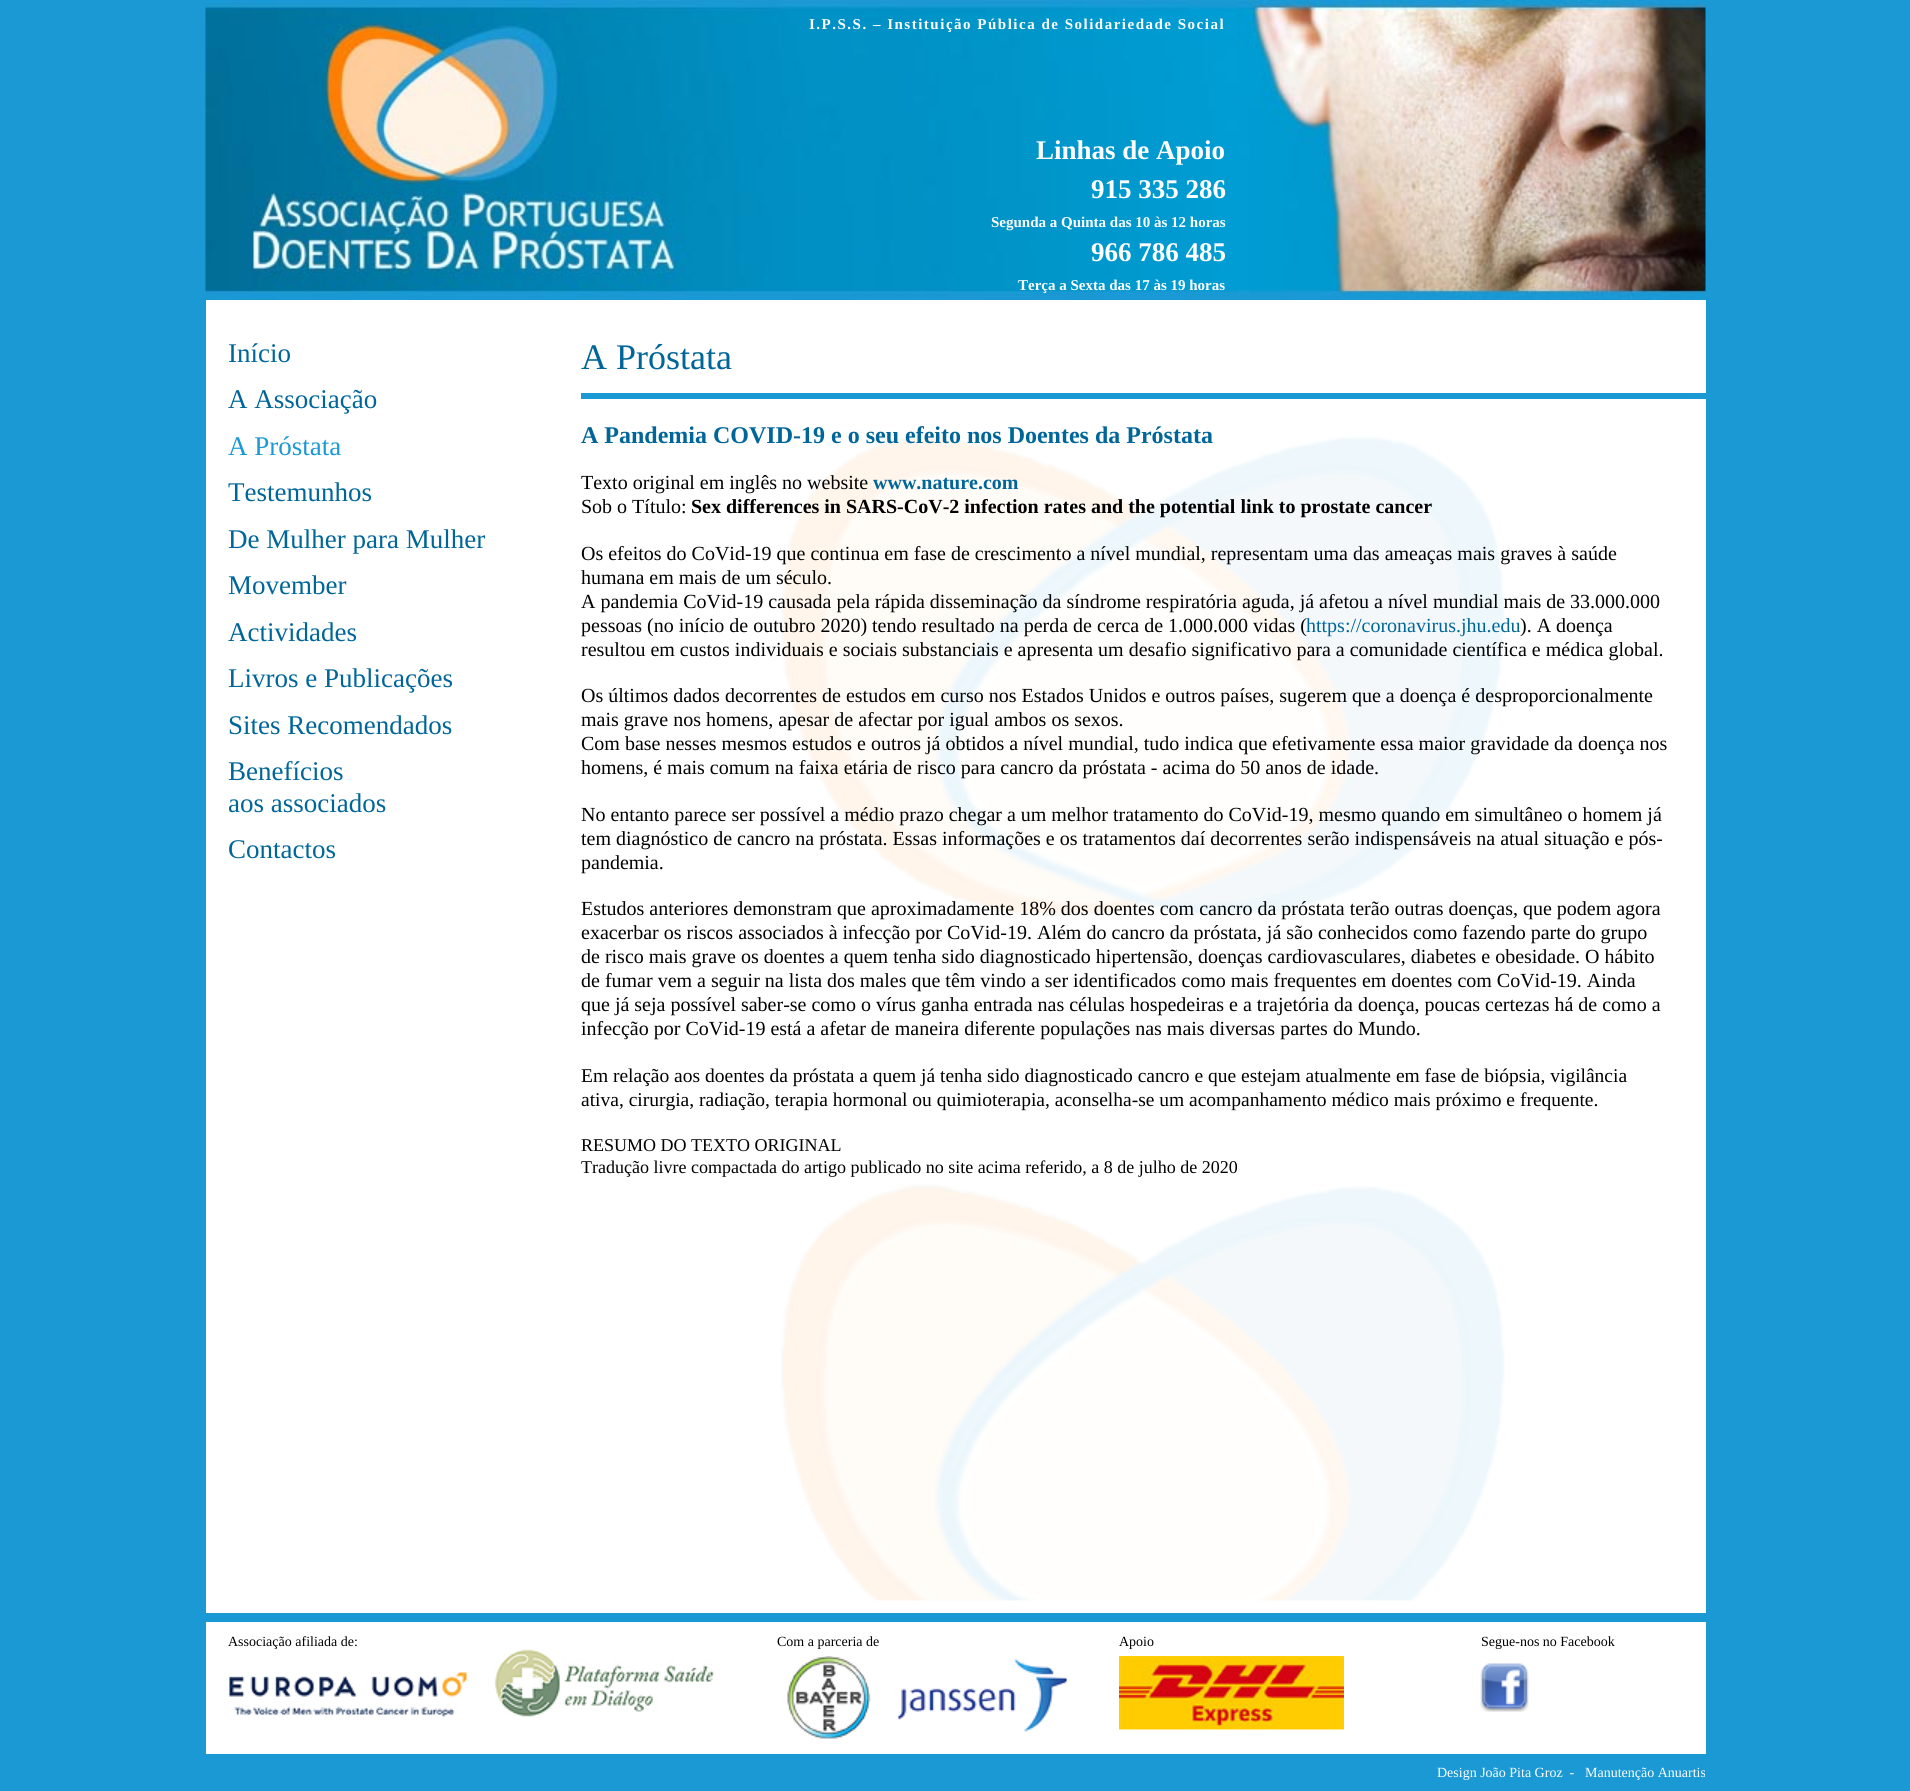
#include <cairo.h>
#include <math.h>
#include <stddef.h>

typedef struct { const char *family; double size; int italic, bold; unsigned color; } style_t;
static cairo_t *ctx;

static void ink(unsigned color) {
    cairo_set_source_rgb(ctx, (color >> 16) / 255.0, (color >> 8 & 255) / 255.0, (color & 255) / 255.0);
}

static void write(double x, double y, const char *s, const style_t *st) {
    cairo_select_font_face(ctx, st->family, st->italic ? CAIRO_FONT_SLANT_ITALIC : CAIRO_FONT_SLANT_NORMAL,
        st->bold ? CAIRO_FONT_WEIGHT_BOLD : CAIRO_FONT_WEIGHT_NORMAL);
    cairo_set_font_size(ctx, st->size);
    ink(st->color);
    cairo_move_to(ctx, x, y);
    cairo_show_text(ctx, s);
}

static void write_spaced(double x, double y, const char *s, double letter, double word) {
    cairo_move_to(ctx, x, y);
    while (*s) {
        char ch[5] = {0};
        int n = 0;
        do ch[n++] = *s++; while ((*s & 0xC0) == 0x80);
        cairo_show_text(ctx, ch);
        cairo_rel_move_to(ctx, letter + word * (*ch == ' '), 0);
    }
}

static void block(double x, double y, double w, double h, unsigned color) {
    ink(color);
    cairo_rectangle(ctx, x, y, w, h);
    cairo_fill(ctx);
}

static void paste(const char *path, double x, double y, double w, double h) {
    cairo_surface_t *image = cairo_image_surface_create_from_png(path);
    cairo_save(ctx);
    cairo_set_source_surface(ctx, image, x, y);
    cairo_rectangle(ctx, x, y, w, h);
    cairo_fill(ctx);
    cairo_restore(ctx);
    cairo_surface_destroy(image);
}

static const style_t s1 = {"Liberation Serif", 27, 0, 1, 0xffffff};
static const style_t s2 = {"Liberation Serif", 15, 0, 1, 0xffffff};
static const style_t s3 = {"Liberation Serif", 27, 0, 0, 0x006699};
static const style_t s4 = {"Liberation Serif", 27, 0, 0, 0x1a99d4};
static const style_t s5 = {"Liberation Serif", 36, 0, 0, 0x006699};
static const style_t s6 = {"Liberation Serif", 24, 0, 1, 0x006699};
static const style_t s7 = {"Liberation Serif", 20, 0, 0, 0x000000};
static const style_t s8 = {"Liberation Serif", 20, 0, 1, 0x006699};
static const style_t s9 = {"Liberation Serif", 20, 0, 1, 0x000000};
static const style_t s10 = {"Liberation Serif", 20, 0, 0, 0x006699};
static const style_t s11 = {"Liberation Serif", 19.5, 0, 0, 0x000000};
static const style_t s12 = {"Liberation Serif", 18, 0, 0, 0x000000};
static const style_t s13 = {"Liberation Serif", 14, 0, 0, 0x000000};
static const style_t s14 = {"Liberation Serif", 14, 0, 0, 0xffffff};

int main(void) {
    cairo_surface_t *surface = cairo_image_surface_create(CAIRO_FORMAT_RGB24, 1910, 1791);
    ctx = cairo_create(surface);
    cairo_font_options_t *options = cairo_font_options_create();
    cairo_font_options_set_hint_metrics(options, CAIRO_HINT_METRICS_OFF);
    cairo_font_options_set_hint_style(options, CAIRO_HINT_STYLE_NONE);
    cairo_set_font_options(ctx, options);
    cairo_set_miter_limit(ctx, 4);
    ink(0x1a99d4);
    cairo_paint(ctx);
    paste("pic1.png", 205, 0, 1501, 300);
    cairo_select_font_face(ctx, "Liberation Serif", CAIRO_FONT_SLANT_NORMAL, CAIRO_FONT_WEIGHT_BOLD);
    cairo_set_font_size(ctx, 15);
    ink(0xffffff);
    write_spaced(809, 29, "I.P.S.S. – Instituição Pública de Solidariedade Social", 1.5, 0);
    write(1036, 159, "Linhas de Apoio", &s1);
    write(1091, 198, "915 335 286", &s1);
    write(991, 227, "Segunda a Quinta das 10 às 12 horas", &s2);
    write(1091, 261, "966 786 485", &s1);
    write(1018, 290, "Terça a Sexta das 17 às 19 horas", &s2);
    block(206, 300, 1500, 1454, 0xffffff);
    write(228, 362, "Início", &s3);
    write(228, 408, "A Associação", &s3);
    write(228, 455, "A Próstata", &s4);
    write(228, 501, "Testemunhos", &s3);
    write(228, 548, "De Mulher para Mulher", &s3);
    write(228, 594, "Movember", &s3);
    write(228, 641, "Actividades", &s3);
    write(228, 687, "Livros e Publicações", &s3);
    write(228, 734, "Sites Recomendados", &s3);
    write(228, 780, "Benefícios", &s3);
    write(228, 812, "aos associados", &s3);
    write(228, 858, "Contactos", &s3);
    paste("pic2.png", 781, 435, 724, 1166);
    write(581, 369, "A Próstata", &s5);
    block(581, 393, 1125, 6, 0x1a99d4);
    write(581, 443, "A Pandemia COVID-19 e o seu efeito nos Doentes da Próstata", &s6);
    write(581, 489, "Texto original em inglês no website", &s7);
    write(873, 489, "www.nature.com", &s8);
    write(581, 513, "Sob o Título:", &s7);
    write(691, 513, "Sex differences in SARS-CoV-2 infection rates and the potential link to prostate cancer", &s9);
    write(581, 560, "Os efeitos do CoVid-19 que continua em fase de crescimento a nível mundial, representam uma das ameaças mais graves à saúde", &s7);
    write(581, 584, "humana em mais de um século.", &s7);
    write(581, 608, "A pandemia CoVid-19 causada pela rápida disseminação da síndrome respiratória aguda, já afetou a nível mundial mais de 33.000.000", &s7);
    write(581, 632, "pessoas (no início de outubro 2020) tendo resultado na perda de cerca de 1.000.000 vidas (", &s7);
    write(1306, 632, "https://coronavirus.jhu.edu", &s10);
    write(1520, 632, "). A doença", &s7);
    write(581, 656, "resultou em custos individuais e sociais substanciais e apresenta um desafio significativo para a comunidade científica e médica global.", &s7);
    write(581, 702, "Os últimos dados decorrentes de estudos em curso nos Estados Unidos e outros países, sugerem que a doença é desproporcionalmente", &s7);
    write(581, 726, "mais grave nos homens, apesar de afectar por igual ambos os sexos.", &s7);
    write(581, 750, "Com base nesses mesmos estudos e outros já obtidos a nível mundial, tudo indica que efetivamente essa maior gravidade da doença nos", &s7);
    write(581, 774, "homens, é mais comum na faixa etária de risco para cancro da próstata - acima do 50 anos de idade.", &s7);
    write(581, 821, "No entanto parece ser possível a médio prazo chegar a um melhor tratamento do CoVid-19, mesmo quando em simultâneo o homem já", &s7);
    write(581, 845, "tem diagnóstico de cancro na próstata. Essas informações e os tratamentos daí decorrentes serão indispensáveis na atual situação e pós-", &s7);
    write(581, 869, "pandemia.", &s7);
    write(581, 915, "Estudos anteriores demonstram que aproximadamente 18% dos doentes com cancro da próstata terão outras doenças, que podem agora", &s7);
    write(581, 939, "exacerbar os riscos associados à infecção por CoVid-19. Além do cancro da próstata, já são conhecidos como fazendo parte do grupo", &s7);
    write(581, 963, "de risco mais grave os doentes a quem tenha sido diagnosticado hipertensão, doenças cardiovasculares, diabetes e obesidade. O hábito", &s7);
    write(581, 987, "de fumar vem a seguir na lista dos males que têm vindo a ser identificados como mais frequentes em doentes com CoVid-19. Ainda", &s7);
    write(581, 1011, "que já seja possível saber-se como o vírus ganha entrada nas células hospedeiras e a trajetória da doença, poucas certezas há de como a", &s7);
    write(581, 1035, "infecção por CoVid-19 está a afetar de maneira diferente populações nas mais diversas partes do Mundo.", &s7);
    write(581, 1082, "Em relação aos doentes da próstata a quem já tenha sido diagnosticado cancro e que estejam atualmente em fase de biópsia, vigilância", &s11);
    write(581, 1106, "ativa, cirurgia, radiação, terapia hormonal ou quimioterapia, aconselha-se um acompanhamento médico mais próximo e frequente.", &s11);
    write(581, 1151, "RESUMO DO TEXTO ORIGINAL", &s12);
    write(581, 1173, "Tradução livre compactada do artigo publicado no site acima referido, a 8 de julho de 2020", &s12);
    block(206, 1613, 1500, 9, 0x1a99d4);
    write(228, 1646, "Associação afiliada de:", &s13);
    paste("pic3.png", 229, 1672, 239, 46);
    paste("pic4.png", 494, 1649, 220, 68);
    write(777, 1646, "Com a parceria de", &s13);
    paste("pic5.png", 787, 1656, 84, 83);
    paste("pic6.png", 897, 1658, 171, 74);
    write(1119, 1646, "Apoio", &s13);
    paste("pic7.png", 1119, 1656, 225, 74);
    write(1481, 1646, "Segue-nos no Facebook", &s13);
    paste("pic8.png", 1480, 1663, 49, 49);
    write(1437, 1777, "Design João Pita Groz  -", &s14);
    write(1585, 1777, "Manutenção Anuartis", &s14);
    cairo_surface_write_to_png(surface, "screenshot.png");
    cairo_font_options_destroy(options);
    cairo_destroy(ctx);
    cairo_surface_destroy(surface);
    return 0;
}
